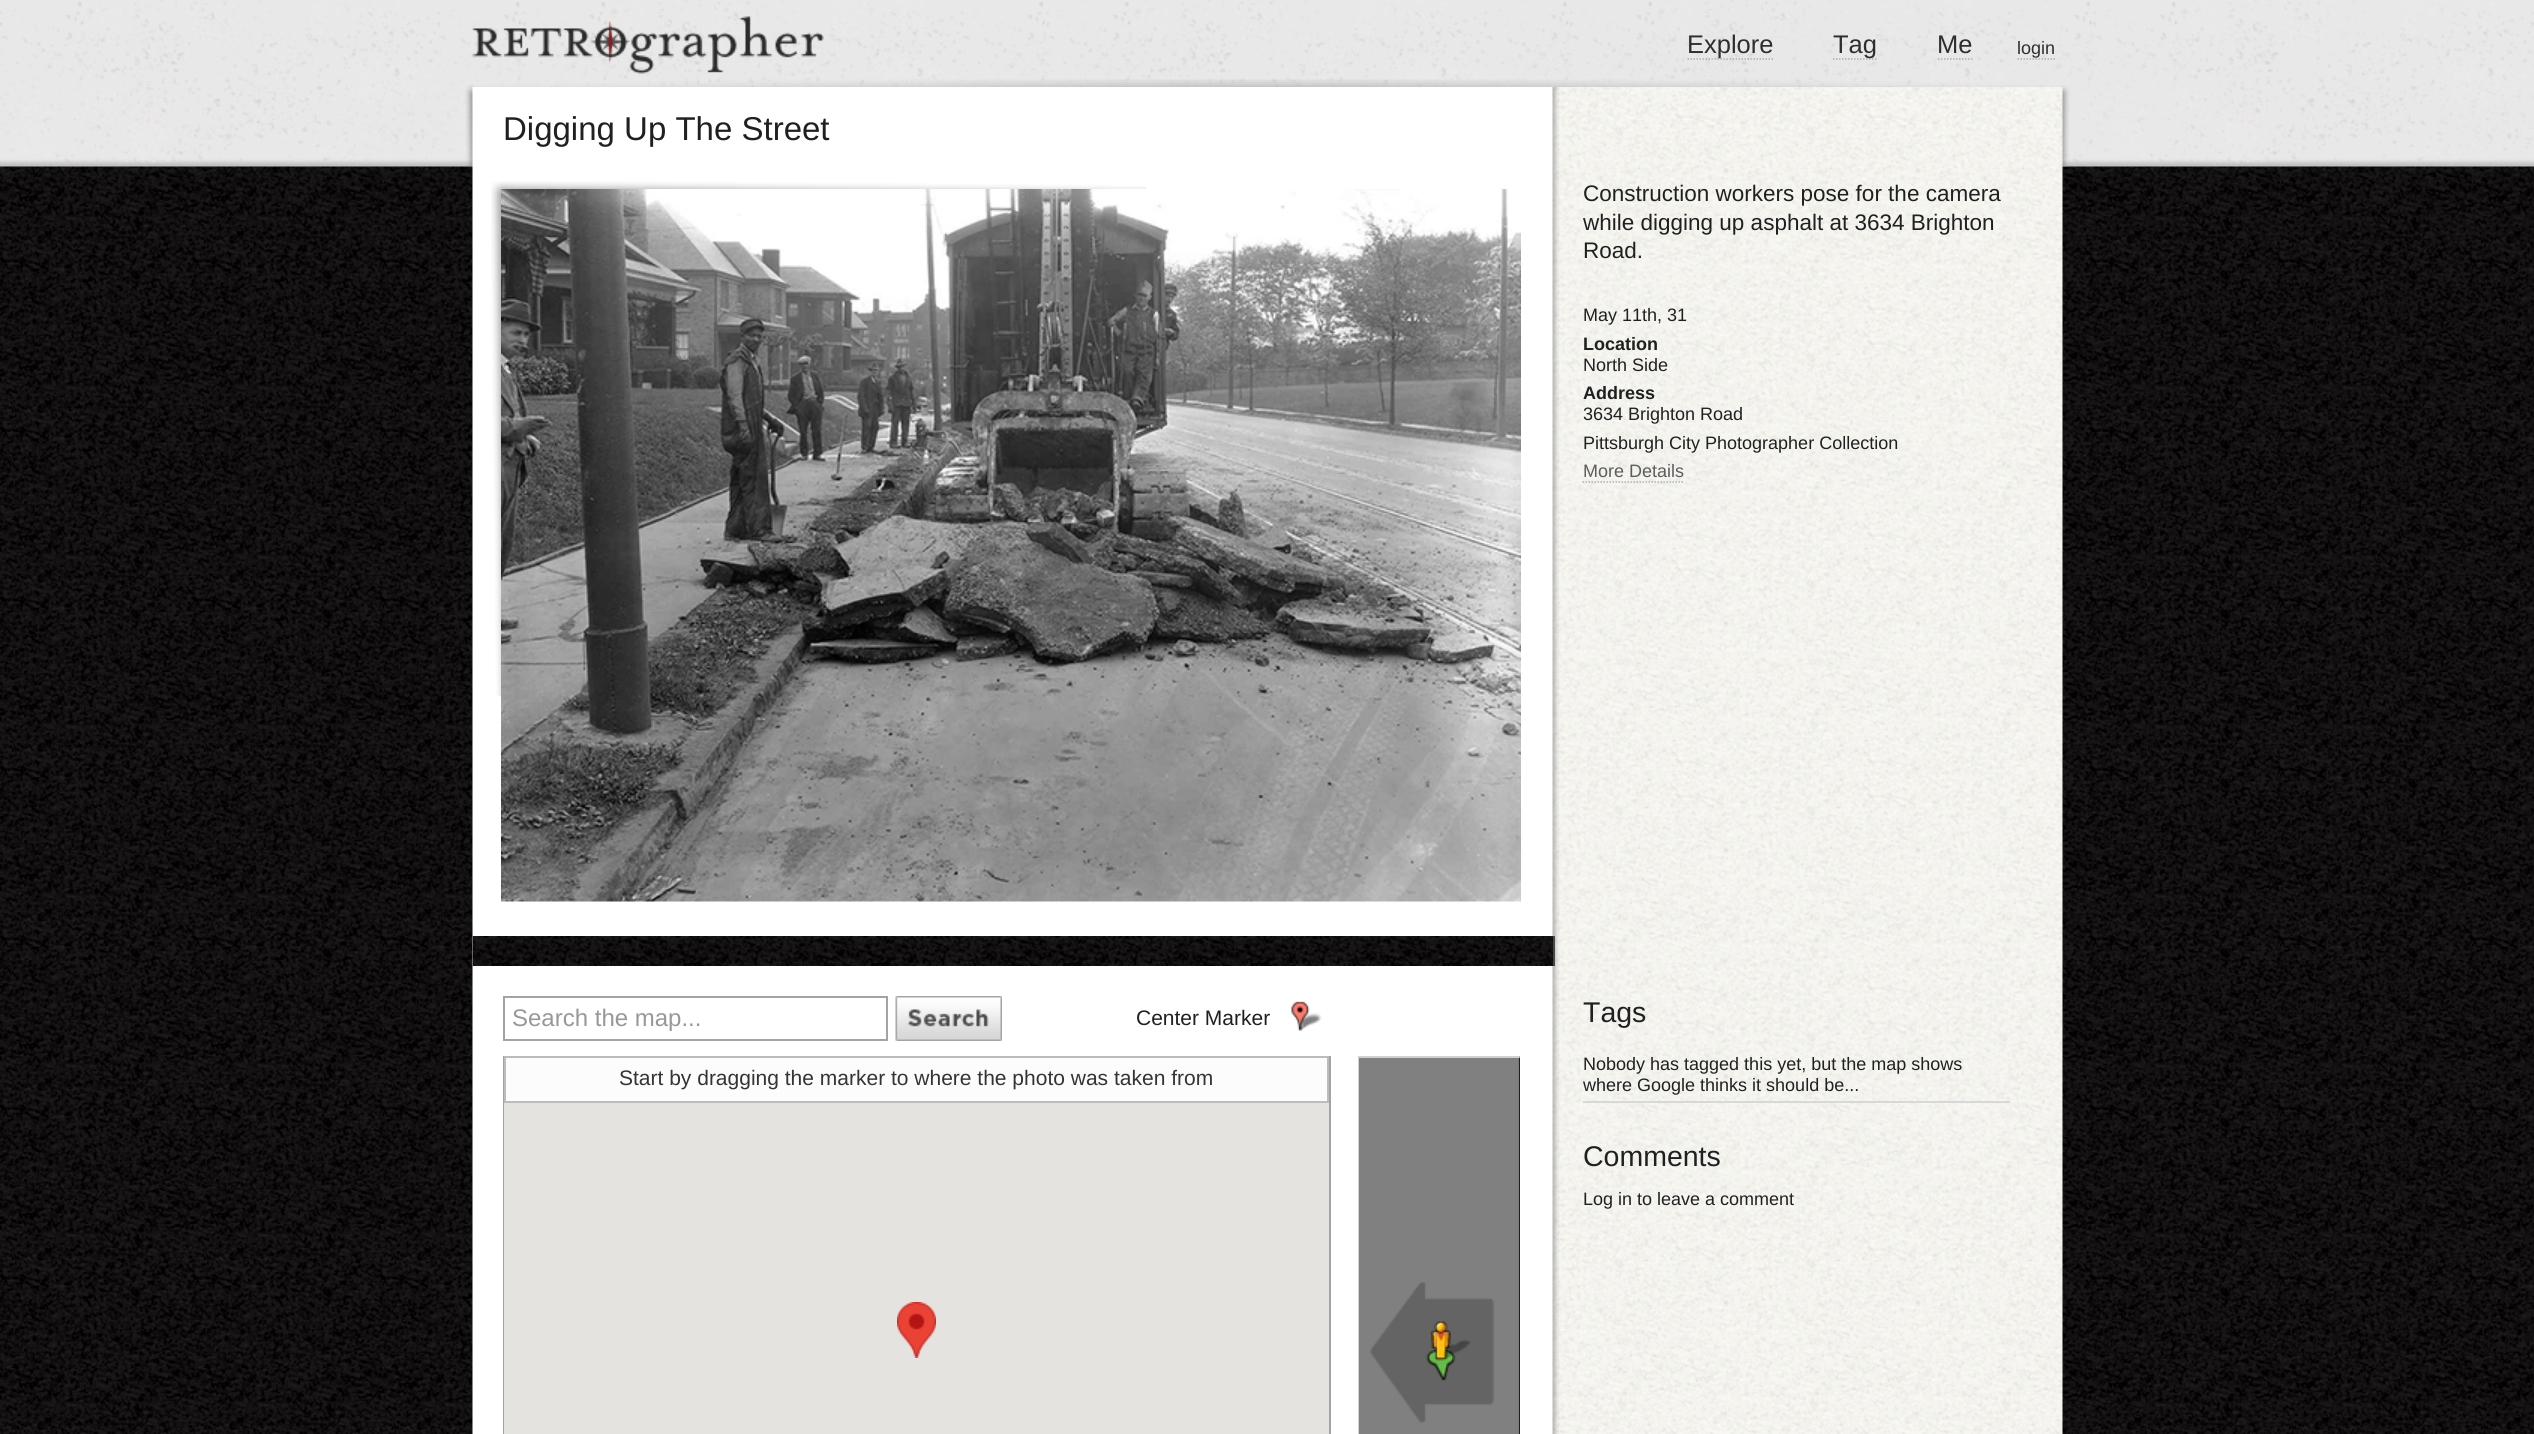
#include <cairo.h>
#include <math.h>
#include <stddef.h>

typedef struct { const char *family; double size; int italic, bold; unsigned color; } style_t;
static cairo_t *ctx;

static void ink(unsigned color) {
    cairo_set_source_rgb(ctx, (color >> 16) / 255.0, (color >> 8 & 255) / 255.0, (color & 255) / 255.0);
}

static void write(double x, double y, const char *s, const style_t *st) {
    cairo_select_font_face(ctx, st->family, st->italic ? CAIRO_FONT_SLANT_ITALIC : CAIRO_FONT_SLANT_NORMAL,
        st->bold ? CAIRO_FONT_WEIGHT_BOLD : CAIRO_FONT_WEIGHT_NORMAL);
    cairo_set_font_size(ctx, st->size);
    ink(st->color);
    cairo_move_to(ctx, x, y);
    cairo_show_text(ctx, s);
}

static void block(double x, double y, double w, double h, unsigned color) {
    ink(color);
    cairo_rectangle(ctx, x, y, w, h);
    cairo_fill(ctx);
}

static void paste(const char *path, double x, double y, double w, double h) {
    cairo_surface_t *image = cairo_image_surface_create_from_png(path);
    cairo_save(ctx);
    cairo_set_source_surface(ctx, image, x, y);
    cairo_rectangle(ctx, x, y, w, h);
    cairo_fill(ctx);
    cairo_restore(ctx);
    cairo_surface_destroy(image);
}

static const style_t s1 = {"Liberation Sans", 25.5, 0, 0, 0x2f2e2e};
static const style_t s2 = {"Liberation Sans", 18, 0, 0, 0x2f2e2e};
static const style_t s3 = {"Liberation Sans", 33, 0, 0, 0x202020};
static const style_t s4 = {"Liberation Sans", 22.5, 0, 0, 0x202020};
static const style_t s5 = {"Liberation Sans", 18, 0, 0, 0x202020};
static const style_t s6 = {"Liberation Sans", 18, 0, 1, 0x202020};
static const style_t s7 = {"Liberation Sans", 18, 0, 0, 0x5e5d5d};
static const style_t s8 = {"Liberation Sans", 24, 0, 0, 0x989898};
static const style_t s9 = {"Liberation Sans", 21, 0, 0, 0x202020};
static const style_t s10 = {"Liberation Sans", 21, 0, 0, 0x343433};
static const style_t s11 = {"Liberation Sans", 28.5, 0, 0, 0x202020};

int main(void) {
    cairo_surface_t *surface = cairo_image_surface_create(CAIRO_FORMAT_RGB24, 2534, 1434);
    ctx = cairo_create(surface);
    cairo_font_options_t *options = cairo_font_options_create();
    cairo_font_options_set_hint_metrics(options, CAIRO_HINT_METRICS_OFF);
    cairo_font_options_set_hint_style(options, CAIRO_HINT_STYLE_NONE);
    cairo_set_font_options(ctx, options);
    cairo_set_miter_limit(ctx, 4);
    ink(0xffffff);
    cairo_paint(ctx);
    paste("pic1.png", 0, 166, 2534, 1268);
    paste("pic2.png", 0, 0, 2534, 167);
    paste("pic3.png", 472, 16, 352, 58);
    cairo_new_path(ctx);
    cairo_move_to(ctx, 1687.5, 59);
    cairo_line_to(ctx, 1773, 59);
    ink(0xafafaf);
    cairo_set_line_width(ctx, 1.5);
    cairo_set_dash(ctx, (double[]){1.5, 1.5}, 2, 0);
    cairo_stroke(ctx);
    write(1687, 53, "Explore", &s1);
    cairo_new_path(ctx);
    cairo_move_to(ctx, 1833, 59);
    cairo_line_to(ctx, 1878, 59);
    ink(0xafafaf);
    cairo_stroke(ctx);
    write(1833, 53, "Tag", &s1);
    write(1937, 53, "Me", &s1);
    cairo_new_path(ctx);
    cairo_move_to(ctx, 1938, 59);
    cairo_line_to(ctx, 1972.5, 59);
    ink(0xafafaf);
    cairo_stroke(ctx);
    write(2017, 54, "login", &s2);
    cairo_new_path(ctx);
    cairo_move_to(ctx, 2017.5, 59);
    cairo_line_to(ctx, 2055, 59);
    ink(0xafafaf);
    cairo_stroke(ctx);
    paste("pic4.png", 465, 79, 1605, 88);
    paste("pic5.png", 472, 87, 1591, 1347);
    write(503, 140, "Digging Up The Street", &s3);
    paste("pic6.png", 491, 181, 655, 515);
    paste("pic7.png", 501, 189, 1020, 713);
    write(1583, 201, "Construction workers pose for the camera", &s4);
    write(1583, 230, "while digging up asphalt at 3634 Brighton", &s4);
    write(1583, 258, "Road.", &s4);
    write(1583, 321, "May 11th, 31", &s5);
    write(1583, 350, "Location", &s6);
    write(1583, 371, "North Side", &s5);
    write(1583, 399, "Address", &s6);
    write(1583, 420, "3634 Brighton Road", &s5);
    write(1583, 449, "Pittsburgh City Photographer Collection", &s5);
    write(1583, 477, "More Details", &s7);
    cairo_new_path(ctx);
    cairo_move_to(ctx, 1582.5, 482);
    cairo_line_to(ctx, 1683, 482);
    ink(0xafafaf);
    cairo_stroke(ctx);
    paste("pic8.png", 472, 936, 1081, 30);
    block(1553, 936, 2, 30, 0x474747);
    cairo_rectangle(ctx, 504, 997, 383, 43);
    ink(0xa3a3a3);
    cairo_set_line_width(ctx, 2);
    cairo_set_dash(ctx, NULL, 0, 0);
    cairo_stroke(ctx);
    write(512, 1026, "Search the map...", &s8);
    paste("pic9.png", 895, 996, 107, 45);
    paste("pic10.png", 1291, 1001, 31, 30);
    write(1136, 1025, "Center Marker", &s9);
    cairo_rectangle(ctx, 504, 1057, 826, 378);
    ink(0xa3a3a3);
    cairo_stroke(ctx);
    block(504, 1058, 825, 376, 0xe5e3df);
    paste("pic11.png", 897, 1302, 39, 56);
    block(1583, 1101, 427, 2, 0xd8d8d8);
    write(1583, 1070, "Nobody has tagged this yet, but the map shows", &s5);
    cairo_save(ctx);
    cairo_rectangle(ctx, 503, 1056, 1017, 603);
    cairo_clip(ctx);
    cairo_rectangle(ctx, 1359, 1057, 826, 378);
    ink(0xa3a3a3);
    cairo_stroke(ctx);
    cairo_restore(ctx);
    block(1359, 1058, 161, 376, 0x000000);
    cairo_set_source_rgba(ctx, 1, 1, 1, 0.9);
    cairo_rectangle(ctx, 504, 1056, 825, 47);
    cairo_fill(ctx);
    cairo_rectangle(ctx, 505, 1057, 823, 45);
    cairo_set_source_rgba(ctx, 0.71, 0.71, 0.71, 0.9);
    cairo_stroke(ctx);
    write(619, 1085, "Start by dragging the marker to where the photo was taken from", &s10);
    paste("pic12.png", 1358, 1056, 162, 378);
    write(1583, 1022, "Tags", &s11);
    write(1583, 1091, "where Google thinks it should be...", &s5);
    write(1583, 1166, "Comments", &s11);
    write(1583, 1205, "Log in to leave a comment", &s5);
    cairo_surface_write_to_png(surface, "screenshot.png");
    cairo_font_options_destroy(options);
    cairo_destroy(ctx);
    cairo_surface_destroy(surface);
    return 0;
}
